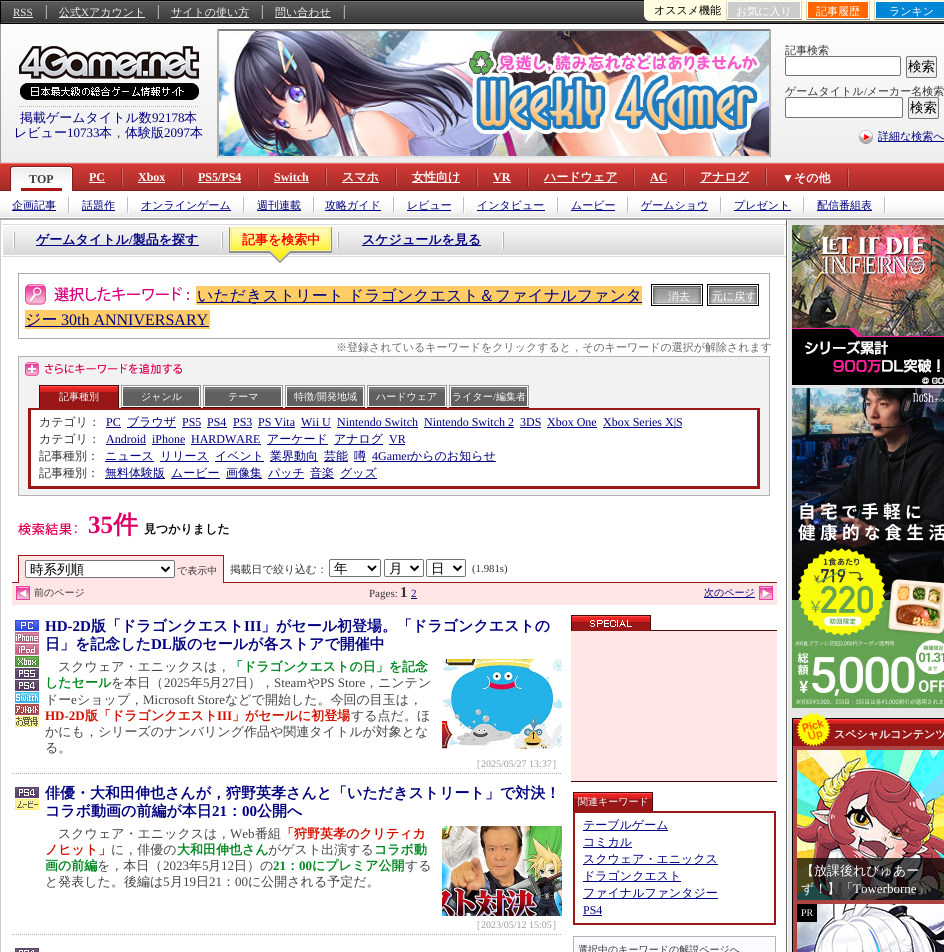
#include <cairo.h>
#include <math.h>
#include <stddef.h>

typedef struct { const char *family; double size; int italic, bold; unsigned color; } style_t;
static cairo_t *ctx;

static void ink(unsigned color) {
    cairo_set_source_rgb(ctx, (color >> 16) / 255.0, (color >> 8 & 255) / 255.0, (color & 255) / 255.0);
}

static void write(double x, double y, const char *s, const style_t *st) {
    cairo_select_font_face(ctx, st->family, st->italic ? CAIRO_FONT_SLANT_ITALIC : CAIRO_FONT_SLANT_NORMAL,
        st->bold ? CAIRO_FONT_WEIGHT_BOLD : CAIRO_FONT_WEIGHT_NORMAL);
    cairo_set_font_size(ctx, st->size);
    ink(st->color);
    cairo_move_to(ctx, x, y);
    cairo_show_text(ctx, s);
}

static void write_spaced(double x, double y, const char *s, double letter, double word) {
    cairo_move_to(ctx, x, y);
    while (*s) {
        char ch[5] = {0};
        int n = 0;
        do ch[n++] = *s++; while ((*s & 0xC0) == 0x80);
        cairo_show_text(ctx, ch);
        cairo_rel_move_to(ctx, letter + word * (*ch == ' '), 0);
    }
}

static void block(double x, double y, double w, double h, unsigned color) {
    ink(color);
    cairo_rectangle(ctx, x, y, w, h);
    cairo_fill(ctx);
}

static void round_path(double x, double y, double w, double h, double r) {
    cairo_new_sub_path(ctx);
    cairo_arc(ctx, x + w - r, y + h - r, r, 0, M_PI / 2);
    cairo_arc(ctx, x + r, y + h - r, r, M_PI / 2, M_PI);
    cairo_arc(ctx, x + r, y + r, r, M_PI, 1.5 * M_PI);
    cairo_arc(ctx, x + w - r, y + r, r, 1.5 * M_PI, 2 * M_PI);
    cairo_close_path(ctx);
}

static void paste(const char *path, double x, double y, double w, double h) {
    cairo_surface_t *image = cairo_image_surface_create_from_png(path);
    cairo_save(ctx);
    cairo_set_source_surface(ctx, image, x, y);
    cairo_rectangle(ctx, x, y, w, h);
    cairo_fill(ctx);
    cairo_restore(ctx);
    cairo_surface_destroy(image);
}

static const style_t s1 = {"Liberation Serif", 11, 0, 0, 0xf0f0f0};
static const style_t s2 = {"WenQuanYi Zen Hei Medium", 11, 0, 0, 0xf0f0f0};
static const style_t s3 = {"WenQuanYi Zen Hei Medium", 11, 0, 0, 0x000000};
static const style_t s4 = {"WenQuanYi Zen Hei Medium", 11, 0, 0, 0xffffff};
static const style_t s5 = {"WenQuanYi Zen Hei Medium", 13, 0, 0, 0x000080};
static const style_t s6 = {"Liberation Serif", 13, 0, 0, 0x000080};
static const style_t s7 = {"WenQuanYi Zen Hei Medium", 13, 0, 0, 0x333333};
static const style_t s8 = {"WenQuanYi Zen Hei Medium", 11, 0, 0, 0x333333};
static const style_t s9 = {"WenQuanYi Zen Hei Medium", 13.5, 0, 0, 0x000000};
static const style_t s10 = {"Liberation Serif", 11, 0, 0, 0x333333};
static const style_t s11 = {"WenQuanYi Zen Hei Medium", 11, 0, 0, 0x000080};
static const style_t s12 = {"Liberation Serif", 12, 0, 1, 0x3d3d3d};
static const style_t s13 = {"Liberation Serif", 12, 0, 1, 0xffffff};
static const style_t s14 = {"WenQuanYi Zen Hei", 12, 0, 1, 0xffffff};
static const style_t s15 = {"WenQuanYi Zen Hei", 13, 0, 1, 0x000080};
static const style_t s16 = {"Liberation Serif", 13, 0, 1, 0x000080};
static const style_t s17 = {"WenQuanYi Zen Hei", 13, 0, 1, 0xff0000};
static const style_t s18 = {"WenQuanYi Zen Hei Medium", 16, 0, 0, 0x000080};
static const style_t s19 = {"Liberation Serif", 16, 0, 0, 0x000080};
static const style_t s20 = {"WenQuanYi Zen Hei Medium", 11, 0, 0, 0x666666};
static const style_t s21 = {"WenQuanYi Zen Hei Medium", 10, 0, 0, 0xffffff};
static const style_t s22 = {"Liberation Serif", 10, 0, 0, 0xffffff};
static const style_t s23 = {"WenQuanYi Zen Hei Medium", 12, 0, 0, 0x333333};
static const style_t s24 = {"Liberation Serif", 12, 0, 0, 0x000080};
static const style_t s25 = {"WenQuanYi Zen Hei Medium", 12, 0, 0, 0x000080};
static const style_t s26 = {"Liberation Serif", 25, 0, 1, 0xdd0066};
static const style_t s27 = {"WenQuanYi Zen Hei", 25, 0, 1, 0xdd0066};
static const style_t s28 = {"WenQuanYi Zen Hei", 12, 0, 1, 0x000000};
static const style_t s29 = {"WenQuanYi Zen Hei Medium", 10, 0, 0, 0x333333};
static const style_t s30 = {"WenQuanYi Zen Hei Medium", 10.75, 0, 0, 0x333333};
static const style_t s31 = {"Liberation Serif", 10.75, 0, 0, 0x333333};
static const style_t s32 = {"Liberation Serif", 15, 0, 1, 0x333333};
static const style_t s33 = {"Liberation Serif", 11, 0, 0, 0x000080};
static const style_t s34 = {"WenQuanYi Zen Hei Medium", 10, 0, 0, 0x000080};
static const style_t s35 = {"Liberation Serif", 15, 0, 1, 0x000080};
static const style_t s36 = {"WenQuanYi Zen Hei", 15, 0, 1, 0x000080};
static const style_t s37 = {"WenQuanYi Zen Hei Medium", 13, 0, 0, 0x444444};
static const style_t s38 = {"WenQuanYi Zen Hei", 13, 0, 1, 0x00881f};
static const style_t s39 = {"Liberation Serif", 13, 0, 0, 0x444444};
static const style_t s40 = {"Liberation Serif", 13, 0, 1, 0xd01000};
static const style_t s41 = {"WenQuanYi Zen Hei", 13, 0, 1, 0xd01000};
static const style_t s42 = {"WenQuanYi Zen Hei Medium", 10, 0, 0, 0x999999};
static const style_t s43 = {"Liberation Serif", 10, 0, 0, 0x999999};
static const style_t s44 = {"Liberation Serif", 13, 0, 1, 0x00881f};
static const style_t s45 = {"WenQuanYi Zen Hei", 11, 0, 1, 0xffffff};
static const style_t s46 = {"WenQuanYi Zen Hei Medium", 13, 0, 0, 0xffffff};
static const style_t s47 = {"Liberation Serif", 13, 0, 0, 0xffffff};

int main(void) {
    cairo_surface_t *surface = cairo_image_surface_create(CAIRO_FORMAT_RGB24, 944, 952);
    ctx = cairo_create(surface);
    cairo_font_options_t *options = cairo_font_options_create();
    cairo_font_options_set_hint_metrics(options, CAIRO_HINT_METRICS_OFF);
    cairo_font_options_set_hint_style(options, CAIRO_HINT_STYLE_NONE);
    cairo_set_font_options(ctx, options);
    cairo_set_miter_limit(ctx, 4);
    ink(0xffffff);
    cairo_paint(ctx);
    paste("pic1.png", 0, 220, 944, 732);
    paste("pic2.png", 1, 0, 943, 163);
    block(0, 0, 1, 24, 0x000000);
    block(46, 5, 1, 14, 0xa7a7a7);
    block(45, 5, 1, 14, 0x5d5d5d);
    write(13, 16, "RSS", &s1);
    block(13, 17, 20, 1, 0xf0f0f0);
    block(158, 5, 1, 14, 0xa7a7a7);
    block(157, 5, 1, 14, 0x5d5d5d);
    block(59, 17, 86, 1, 0xf0f0f0);
    write(59, 16, "公式", &s2);
    write(81, 16, "X", &s1);
    write(89, 16, "アカウント", &s2);
    block(262, 5, 1, 14, 0xa7a7a7);
    block(261, 5, 1, 14, 0x5d5d5d);
    block(171, 17, 78, 1, 0xf0f0f0);
    write(171, 16, "サイトの使い方", &s2);
    block(344, 5, 1, 14, 0xa7a7a7);
    block(343, 5, 1, 14, 0x5d5d5d);
    block(275, 17, 56, 1, 0xf0f0f0);
    write(275, 16, "問い合わせ", &s2);
    block(644, 0, 300, 21, 0xfffce2);
    paste("pic3.png", 644, 16, 5, 5);
    write(654, 14, "オススメ機能", &s3);
    block(801, 1, 1, 19, 0xd9d6c0);
    block(726, 19, 76, 1, 0x8c8a7c);
    block(726, 1, 1, 19, 0xd9d6c0);
    ink(0xcccccc);
    cairo_rectangle(ctx, 727.5, 1.5, 73, 17);
    cairo_fill_preserve(ctx);
    ink(0xffffff);
    cairo_set_line_width(ctx, 1);
    cairo_stroke(ctx);
    write(736, 15, "お気に入り", &s4);
    block(869, 1, 1, 19, 0xd9d6c0);
    block(806, 19, 64, 1, 0x8c8a7c);
    block(806, 1, 1, 19, 0xd9d6c0);
    ink(0xff6600);
    cairo_rectangle(ctx, 807.5, 1.5, 61, 17);
    cairo_fill_preserve(ctx);
    ink(0xffffff);
    cairo_stroke(ctx);
    write(816, 15, "記事履歴", &s4);
    block(874, 19, 70, 1, 0x8c8a7c);
    block(874, 1, 1, 19, 0xd9d6c0);
    ink(0x0086d7);
    cairo_rectangle(ctx, 875.5, 1.5, 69, 17);
    cairo_fill_preserve(ctx);
    ink(0xffffff);
    cairo_stroke(ctx);
    write(889, 15, "ランキン", &s4);
    block(0, 24, 1, 139, 0xa0a0a0);
    paste("pic4.png", 19, 46, 180, 54);
    paste("pic5.png", 19, 106, 180, 1);
    write(20, 122, "掲載ゲームタイトル数", &s5);
    write(152, 122, "92178", &s6);
    write(184, 122, "本", &s5);
    write(14, 137, "レビュー", &s5);
    write(67, 137, "10733", &s6);
    write(99, 137, "本", &s5);
    write(112, 137, "，", &s7);
    write(125, 137, "体験版", &s5);
    write(164, 137, "2097", &s6);
    write(190, 137, "本", &s5);
    ink(0x7f7f7f);
    cairo_new_path(ctx);
    cairo_move_to(ctx, 217, 29);
    cairo_line_to(ctx, 771, 29);
    cairo_line_to(ctx, 769, 31);
    cairo_line_to(ctx, 219, 31);
    cairo_close_path(ctx);
    cairo_fill(ctx);
    ink(0xafafaf);
    cairo_new_path(ctx);
    cairo_move_to(ctx, 771, 29);
    cairo_line_to(ctx, 771, 158);
    cairo_line_to(ctx, 769, 156);
    cairo_line_to(ctx, 769, 31);
    cairo_close_path(ctx);
    cairo_fill(ctx);
    ink(0xe3e3e3);
    cairo_new_path(ctx);
    cairo_move_to(ctx, 771, 158);
    cairo_line_to(ctx, 217, 158);
    cairo_line_to(ctx, 219, 156);
    cairo_line_to(ctx, 769, 156);
    cairo_close_path(ctx);
    cairo_fill(ctx);
    ink(0xafafaf);
    cairo_new_path(ctx);
    cairo_move_to(ctx, 217, 158);
    cairo_line_to(ctx, 217, 29);
    cairo_line_to(ctx, 219, 31);
    cairo_line_to(ctx, 219, 156);
    cairo_close_path(ctx);
    cairo_fill(ctx);
    paste("pic6.png", 219, 31, 550, 125);
    write(785, 54, "記事検索", &s8);
    ink(0xffffff);
    round_path(785.5, 56.5, 115, 19, 1.5);
    cairo_fill_preserve(ctx);
    ink(0x767676);
    cairo_stroke(ctx);
    ink(0xefefef);
    round_path(906.5, 56.5, 30, 21, 1.5);
    cairo_fill_preserve(ctx);
    ink(0x767676);
    cairo_stroke(ctx);
    write(908, 71, "検索", &s9);
    write(785, 95, "ゲームタイトル メーカー名検索", &s8);
    write(864, 95, "/", &s10);
    ink(0xffffff);
    round_path(785.5, 97.5, 117, 20, 1.5);
    cairo_fill_preserve(ctx);
    ink(0x767676);
    cairo_stroke(ctx);
    ink(0xefefef);
    round_path(908.5, 97.5, 30, 21, 1.5);
    cairo_fill_preserve(ctx);
    ink(0x767676);
    cairo_stroke(ctx);
    write(910, 112, "検索", &s9);
    paste("pic7.png", 859, 130, 14, 14);
    block(878, 141, 66, 1, 0x000080);
    write(878, 140, "詳細な検索へ", &s11);
    paste("pic8.png", 0, 163, 944, 57);
    paste("pic9.png", 10, 166, 61, 25);
    paste("pic10.png", 71, 166, 2, 25);
    block(21, 188, 41, 3, 0xac1410);
    write(29, 183, "TOP", &s12);
    cairo_set_source_rgba(ctx, 1, 1, 1, 0.25);
    cairo_rectangle(ctx, 122, 168, 1, 18);
    cairo_fill(ctx);
    cairo_set_source_rgba(ctx, 0, 0, 0, 0.25);
    cairo_rectangle(ctx, 121, 168, 1, 18);
    cairo_fill(ctx);
    write(89, 181, "PC", &s13);
    block(89, 182, 16, 1, 0xffffff);
    cairo_set_source_rgba(ctx, 1, 1, 1, 0.25);
    cairo_rectangle(ctx, 182, 168, 1, 18);
    cairo_fill(ctx);
    cairo_set_source_rgba(ctx, 0, 0, 0, 0.25);
    cairo_rectangle(ctx, 181, 168, 1, 18);
    cairo_fill(ctx);
    write(138, 181, "Xbox", &s13);
    block(138, 182, 27, 1, 0xffffff);
    cairo_set_source_rgba(ctx, 1, 1, 1, 0.25);
    cairo_rectangle(ctx, 258, 168, 1, 18);
    cairo_fill(ctx);
    cairo_set_source_rgba(ctx, 0, 0, 0, 0.25);
    cairo_rectangle(ctx, 257, 168, 1, 18);
    cairo_fill(ctx);
    write(198, 181, "PS5/PS4", &s13);
    block(198, 182, 43, 1, 0xffffff);
    cairo_set_source_rgba(ctx, 1, 1, 1, 0.25);
    cairo_rectangle(ctx, 326, 168, 1, 18);
    cairo_fill(ctx);
    cairo_set_source_rgba(ctx, 0, 0, 0, 0.25);
    cairo_rectangle(ctx, 325, 168, 1, 18);
    cairo_fill(ctx);
    write(274, 181, "Switch", &s13);
    block(274, 182, 35, 1, 0xffffff);
    cairo_set_source_rgba(ctx, 1, 1, 1, 0.25);
    cairo_rectangle(ctx, 396, 168, 1, 18);
    cairo_fill(ctx);
    cairo_set_source_rgba(ctx, 0, 0, 0, 0.25);
    cairo_rectangle(ctx, 395, 168, 1, 18);
    cairo_fill(ctx);
    block(342, 182, 37, 1, 0xffffff);
    write(342, 181, "スマホ", &s14);
    cairo_set_source_rgba(ctx, 1, 1, 1, 0.25);
    cairo_rectangle(ctx, 477, 168, 1, 18);
    cairo_fill(ctx);
    cairo_set_source_rgba(ctx, 0, 0, 0, 0.25);
    cairo_rectangle(ctx, 476, 168, 1, 18);
    cairo_fill(ctx);
    block(412, 182, 48, 1, 0xffffff);
    write(412, 181, "女性向け", &s14);
    cairo_set_source_rgba(ctx, 1, 1, 1, 0.25);
    cairo_rectangle(ctx, 528, 168, 1, 18);
    cairo_fill(ctx);
    cairo_set_source_rgba(ctx, 0, 0, 0, 0.25);
    cairo_rectangle(ctx, 527, 168, 1, 18);
    cairo_fill(ctx);
    write(493, 181, "VR", &s13);
    block(493, 182, 18, 1, 0xffffff);
    cairo_set_source_rgba(ctx, 1, 1, 1, 0.25);
    cairo_rectangle(ctx, 634, 168, 1, 18);
    cairo_fill(ctx);
    cairo_set_source_rgba(ctx, 0, 0, 0, 0.25);
    cairo_rectangle(ctx, 633, 168, 1, 18);
    cairo_fill(ctx);
    block(544, 182, 73, 1, 0xffffff);
    write(544, 181, "ハードウェア", &s14);
    cairo_set_source_rgba(ctx, 1, 1, 1, 0.25);
    cairo_rectangle(ctx, 684, 168, 1, 18);
    cairo_fill(ctx);
    cairo_set_source_rgba(ctx, 0, 0, 0, 0.25);
    cairo_rectangle(ctx, 683, 168, 1, 18);
    cairo_fill(ctx);
    write(650, 181, "AC", &s13);
    block(650, 182, 17, 1, 0xffffff);
    cairo_set_source_rgba(ctx, 1, 1, 1, 0.25);
    cairo_rectangle(ctx, 766, 168, 1, 18);
    cairo_fill(ctx);
    cairo_set_source_rgba(ctx, 0, 0, 0, 0.25);
    cairo_rectangle(ctx, 765, 168, 1, 18);
    cairo_fill(ctx);
    block(700, 182, 49, 1, 0xffffff);
    write(700, 181, "アナログ", &s14);
    cairo_set_source_rgba(ctx, 1, 1, 1, 0.25);
    cairo_rectangle(ctx, 848, 169, 1, 18);
    cairo_fill(ctx);
    cairo_set_source_rgba(ctx, 0, 0, 0, 0.25);
    cairo_rectangle(ctx, 847, 169, 1, 18);
    cairo_fill(ctx);
    write(782, 182, "▼", &s13);
    write(794, 182, "その他", &s14);
    block(69, 197, 1, 16, 0xffffff);
    block(68, 197, 1, 16, 0xbfbfbf);
    block(12, 210, 44, 1, 0x000080);
    write(12, 209, "企画記事", &s11);
    block(128, 197, 1, 16, 0xffffff);
    block(127, 197, 1, 16, 0xbfbfbf);
    block(82, 210, 33, 1, 0x000080);
    write(82, 209, "話題作", &s11);
    block(244, 197, 1, 16, 0xffffff);
    block(243, 197, 1, 16, 0xbfbfbf);
    block(141, 210, 90, 1, 0x000080);
    write(141, 209, "オンラインゲーム", &s11);
    block(314, 197, 1, 16, 0xffffff);
    block(313, 197, 1, 16, 0xbfbfbf);
    block(257, 210, 44, 1, 0x000080);
    write(257, 209, "週刊連載", &s11);
    block(394, 197, 1, 16, 0xffffff);
    block(393, 197, 1, 16, 0xbfbfbf);
    block(325, 210, 56, 1, 0x000080);
    write(325, 209, "攻略ガイド", &s11);
    block(464, 197, 1, 16, 0xffffff);
    block(463, 197, 1, 16, 0xbfbfbf);
    write(407, 209, "レビュー", &s11);
    block(407, 210, 44, 1, 0x000080);
    block(558, 197, 1, 16, 0xffffff);
    block(557, 197, 1, 16, 0xbfbfbf);
    block(477, 210, 68, 1, 0x000080);
    write(477, 209, "インタビュー", &s11);
    block(628, 197, 1, 16, 0xffffff);
    block(627, 197, 1, 16, 0xbfbfbf);
    write(571, 209, "ムービー", &s11);
    block(571, 210, 44, 1, 0x000080);
    block(721, 197, 1, 16, 0xffffff);
    block(720, 197, 1, 16, 0xbfbfbf);
    block(641, 210, 67, 1, 0x000080);
    write(641, 209, "ゲームショウ", &s11);
    block(804, 197, 1, 16, 0xffffff);
    block(803, 197, 1, 16, 0xbfbfbf);
    block(734, 210, 57, 1, 0x000080);
    write(734, 209, "プレゼント", &s11);
    block(885, 197, 1, 16, 0xffffff);
    block(884, 197, 1, 16, 0xbfbfbf);
    block(817, 210, 55, 1, 0x000080);
    write(817, 209, "配信番組表", &s11);
    paste("pic11.png", 2, 224, 784, 33);
    paste("pic12.png", 13, 232, 209, 17);
    block(36, 245, 163, 1, 0x000080);
    write(36, 244, "ゲームタイトル 製品を探す", &s15);
    write(129, 244, "/", &s16);
    paste("pic13.png", 222, 232, 117, 17);
    paste("pic14.png", 229, 227, 103, 36);
    write(242, 244, "記事を検索中", &s17);
    paste("pic15.png", 502, 232, 2, 17);
    block(362, 245, 119, 1, 0x000080);
    write(362, 244, "スケジュールを見る", &s15);
    cairo_rectangle(ctx, 18.5, 273.5, 751, 65);
    ink(0xaaaaaa);
    cairo_stroke(ctx);
    paste("pic16.png", 25, 284, 164, 21);
    block(196, 286, 446, 19, 0xffcc66);
    block(197, 302, 445, 1, 0x000080);
    cairo_select_font_face(ctx, "WenQuanYi Zen Hei Medium", CAIRO_FONT_SLANT_NORMAL, CAIRO_FONT_WEIGHT_NORMAL);
    cairo_set_font_size(ctx, 16);
    write_spaced(197, 301, "いただきストリート ドラゴンクエスト＆ファイナルファンタ", 0, -1);
    paste("pic17.png", 651, 284, 52, 22);
    write(668, 300, "消去", &s4);
    paste("pic17.png", 707, 284, 52, 22);
    write(712, 300, "元に戻す", &s4);
    block(25, 310, 185, 19, 0xffcc66);
    block(25, 326, 184, 1, 0x000080);
    write(25, 325, "ジー", &s18);
    write(61, 325, "30th ANNIVERSARY", &s19);
    write(336, 351, "※登録されているキーワードをクリックすると，そのキーワードの選択が解除されます", &s20);
    ink(0xf2f2f2);
    cairo_rectangle(ctx, 18.5, 356.5, 751, 139);
    cairo_fill_preserve(ctx);
    ink(0xb3b3b3);
    cairo_stroke(ctx);
    paste("pic18.png", 25, 362, 157, 14);
    block(40, 392, 78, 16, 0x991717);
    paste("pic19.png", 40, 386, 78, 6);
    block(39, 385, 80, 1, 0x4d0b0b);
    block(118, 385, 1, 23, 0x4d0b0b);
    block(39, 385, 1, 23, 0x4d0b0b);
    write(59, 400, "記事種別", &s21);
    block(121, 385, 80, 21, 0x999999);
    block(121, 406, 80, 1, 0xffffff);
    block(121, 407, 80, 1, 0x4d0b0b);
    paste("pic20.png", 123, 387, 76, 19);
    block(122, 386, 78, 1, 0xffffff);
    block(199, 386, 1, 20, 0xffffff);
    block(122, 386, 1, 20, 0xffffff);
    write(141, 400, "ジャンル", &s21);
    block(203, 385, 80, 21, 0x999999);
    block(203, 406, 80, 1, 0xffffff);
    block(203, 407, 80, 1, 0x4d0b0b);
    paste("pic20.png", 205, 387, 76, 19);
    block(204, 386, 78, 1, 0xffffff);
    block(281, 386, 1, 20, 0xffffff);
    block(204, 386, 1, 20, 0xffffff);
    write(228, 400, "テーマ", &s21);
    block(285, 385, 80, 21, 0x999999);
    block(285, 406, 80, 1, 0xffffff);
    block(285, 407, 80, 1, 0x4d0b0b);
    paste("pic20.png", 287, 387, 76, 19);
    block(286, 386, 78, 1, 0xffffff);
    block(363, 386, 1, 20, 0xffffff);
    block(286, 386, 1, 20, 0xffffff);
    write(294, 400, "特徴 開発地域", &s21);
    write(314, 400, "/", &s22);
    block(367, 385, 80, 21, 0x999999);
    block(367, 406, 80, 1, 0xffffff);
    block(367, 407, 80, 1, 0x4d0b0b);
    paste("pic20.png", 369, 387, 76, 19);
    block(368, 386, 78, 1, 0xffffff);
    block(445, 386, 1, 20, 0xffffff);
    block(368, 386, 1, 20, 0xffffff);
    write(376, 400, "ハードウェア", &s21);
    block(449, 385, 80, 21, 0x999999);
    block(449, 406, 80, 1, 0xffffff);
    block(449, 407, 80, 1, 0x4d0b0b);
    paste("pic20.png", 451, 387, 76, 19);
    block(450, 386, 78, 1, 0xffffff);
    block(527, 386, 1, 20, 0xffffff);
    block(450, 386, 1, 20, 0xffffff);
    write(452, 400, "ライター", &s21);
    write(493, 400, "/", &s22);
    write(496, 400, "編集者", &s21);
    block(31, 410, 726, 76, 0xffffff);
    block(28, 408, 732, 2, 0x991717);
    block(757, 408, 3, 81, 0x991717);
    block(28, 486, 732, 3, 0x991717);
    block(28, 408, 3, 81, 0x991717);
    write(39, 426, "カテゴリ：", &s23);
    write(106, 426, "PC", &s24);
    block(106, 427, 15, 1, 0x000080);
    block(127, 427, 49, 1, 0x000080);
    write(127, 426, "ブラウザ", &s25);
    write(182, 426, "PS5", &s24);
    block(182, 427, 19, 1, 0x000080);
    write(207, 426, "PS4", &s24);
    block(207, 427, 20, 1, 0x000080);
    write(233, 426, "PS3", &s24);
    block(233, 427, 19, 1, 0x000080);
    write(258, 426, "PS Vita", &s24);
    block(258, 427, 37, 1, 0x000080);
    write(301, 426, "Wii U", &s24);
    block(301, 427, 30, 1, 0x000080);
    write(337, 426, "Nintendo Switch", &s24);
    block(337, 427, 81, 1, 0x000080);
    write(424, 426, "Nintendo Switch 2", &s24);
    block(424, 427, 90, 1, 0x000080);
    write(520, 426, "3DS", &s24);
    block(520, 427, 21, 1, 0x000080);
    write(547, 426, "Xbox One", &s24);
    block(547, 427, 50, 1, 0x000080);
    block(603, 427, 79, 1, 0x000080);
    write(603, 426, "Xbox Series X|S", &s24);
    write(39, 443, "カテゴリ：", &s23);
    write(106, 443, "Android", &s24);
    block(106, 444, 40, 1, 0x000080);
    write(152, 443, "iPhone", &s24);
    block(152, 444, 33, 1, 0x000080);
    write(191, 443, "HARDWARE", &s24);
    block(191, 444, 70, 1, 0x000080);
    block(267, 444, 61, 1, 0x000080);
    write(267, 443, "アーケード", &s25);
    block(334, 444, 49, 1, 0x000080);
    write(334, 443, "アナログ", &s25);
    write(389, 443, "VR", &s24);
    block(389, 444, 16, 1, 0x000080);
    write(39, 460, "記事種別：", &s23);
    write(105, 460, "ニュース", &s25);
    block(105, 461, 49, 1, 0x000080);
    block(160, 461, 49, 1, 0x000080);
    write(160, 460, "リリース", &s25);
    block(215, 461, 49, 1, 0x000080);
    write(215, 460, "イベント", &s25);
    block(270, 461, 48, 1, 0x000080);
    write(270, 460, "業界動向", &s25);
    block(324, 461, 24, 1, 0x000080);
    write(324, 460, "芸能", &s25);
    block(354, 461, 12, 1, 0x000080);
    write(354, 460, "噂", &s25);
    write(372, 460, "4Gamer", &s24);
    block(372, 461, 124, 1, 0x000080);
    write(410, 460, "からのお知らせ", &s25);
    write(39, 477, "記事種別：", &s23);
    block(105, 478, 60, 1, 0x000080);
    write(105, 477, "無料体験版", &s25);
    write(171, 477, "ムービー", &s25);
    block(171, 478, 49, 1, 0x000080);
    block(226, 478, 36, 1, 0x000080);
    write(226, 477, "画像集", &s25);
    block(268, 478, 36, 1, 0x000080);
    write(268, 477, "パッチ", &s25);
    block(310, 478, 24, 1, 0x000080);
    write(310, 477, "音楽", &s25);
    block(340, 478, 37, 1, 0x000080);
    write(340, 477, "グッズ", &s25);
    paste("pic21.png", 18, 523, 59, 12);
    write(88, 533, "35", &s26);
    write(113, 533, "件", &s27);
    write(144, 533, "見つかりました", &s28);
    block(12, 582, 765, 1, 0x991717);
    block(19, 556, 204, 27, 0xffe5e5);
    block(18, 555, 206, 1, 0x991717);
    block(223, 555, 1, 28, 0x991717);
    block(18, 555, 1, 28, 0x991717);
    ink(0xffffff);
    round_path(25.5, 560.5, 149, 17, 1.5);
    cairo_fill_preserve(ctx);
    ink(0x767676);
    cairo_stroke(ctx);
    cairo_new_path(ctx);
    cairo_move_to(ctx, 161.5, 567);
    cairo_line_to(ctx, 165.5, 571);
    cairo_line_to(ctx, 169.5, 567);
    ink(0x000000);
    cairo_set_line_width(ctx, 2);
    cairo_stroke(ctx);
    write(30, 574, "時系列順", &s9);
    write(177, 574, "で表示中", &s29);
    write(230, 573, "掲載日で絞り込む：", &s30);
    round_path(329.5, 559.5, 51, 17, 1.5);
    ink(0x767676);
    cairo_set_line_width(ctx, 1);
    cairo_stroke(ctx);
    cairo_new_path(ctx);
    cairo_move_to(ctx, 368, 566);
    cairo_line_to(ctx, 372, 570);
    cairo_line_to(ctx, 376, 566);
    ink(0x000000);
    cairo_set_line_width(ctx, 2);
    cairo_stroke(ctx);
    write(334, 573, "年", &s9);
    round_path(384.5, 559.5, 39, 17, 1.5);
    ink(0x767676);
    cairo_set_line_width(ctx, 1);
    cairo_stroke(ctx);
    cairo_new_path(ctx);
    cairo_move_to(ctx, 410.5, 566);
    cairo_line_to(ctx, 414.5, 570);
    cairo_line_to(ctx, 418.5, 566);
    ink(0x000000);
    cairo_set_line_width(ctx, 2);
    cairo_stroke(ctx);
    write(389, 573, "月", &s9);
    round_path(426.5, 559.5, 39, 17, 1.5);
    ink(0x767676);
    cairo_set_line_width(ctx, 1);
    cairo_stroke(ctx);
    cairo_new_path(ctx);
    cairo_move_to(ctx, 453.5, 566);
    cairo_line_to(ctx, 457.5, 570);
    cairo_line_to(ctx, 461.5, 566);
    ink(0x000000);
    cairo_set_line_width(ctx, 2);
    cairo_stroke(ctx);
    write(431, 573, "日", &s9);
    write(472, 572, "(1.981s)", &s31);
    block(12, 583, 765, 22, 0xffe5e5);
    paste("pic22.png", 16, 586, 14, 14);
    write(34, 596, "前のページ", &s29);
    write(369, 597, "Pages:", &s10);
    write(400, 597, "1", &s32);
    write(411, 597, "2", &s33);
    block(411, 598, 6, 1, 0x000080);
    block(704, 597, 51, 1, 0x000080);
    write(704, 596, "次のページ", &s34);
    paste("pic23.png", 759, 586, 14, 14);
    paste("pic24.png", 12, 773, 549, 1);
    paste("pic25.png", 15, 620, 24, 11);
    paste("pic26.png", 15, 632, 24, 11);
    paste("pic27.png", 15, 644, 24, 11);
    paste("pic28.png", 15, 656, 24, 11);
    paste("pic29.png", 15, 668, 24, 11);
    paste("pic30.png", 15, 680, 24, 11);
    paste("pic31.png", 15, 692, 24, 11);
    paste("pic32.png", 15, 704, 24, 11);
    paste("pic33.png", 15, 716, 24, 11);
    write(45, 631, "HD-2D", &s35);
    write(91, 631, "版「ドラゴンクエスト", &s36);
    write(244, 631, "III", &s35);
    write(261, 631, "」がセール初登場。「ドラゴンクエストの", &s36);
    write(45, 649, "日」を記念した", &s36);
    write(151, 649, "DL", &s35);
    write(172, 649, "版のセールが各ストアで開催中", &s36);
    write(58, 671, "スクウェア・エニックスは，", &s37);
    write(230, 671, "「ドラゴンクエストの日」を記念", &s38);
    write(45, 687, "したセール", &s38);
    write(111, 687, "を本日（", &s37);
    write(164, 687, "2025", &s39);
    write(190, 687, "年", &s37);
    write(203, 687, "5", &s39);
    write(209, 687, "月", &s37);
    write(222, 687, "27", &s39);
    write(235, 687, "日），", &s37);
    write(274, 687, "Steam", &s39);
    write(307, 687, "や", &s37);
    write(320, 687, "PS Store", &s39);
    write(365, 687, "，ニンテン", &s37);
    write(45, 704, "ドー", &s37);
    write(71, 704, "e", &s39);
    write(77, 704, "ショップ，", &s37);
    write(143, 704, "Microsoft Store", &s39);
    write(225, 704, "などで開始した。今回の目玉は，", &s37);
    write(45, 720, "HD-2D", &s40);
    write(85, 720, "版「ドラゴンクエスト", &s41);
    write(217, 720, "III", &s40);
    write(232, 720, "」がセールに初登場", &s41);
    write(351, 720, "する点だ。ほ", &s37);
    write(45, 736, "かにも，シリーズのナンバリング作品や関連タイトルが対象とな", &s37);
    write(45, 752, "る。", &s37);
    paste("pic34.png", 442, 659, 120, 90);
    write(471, 767, "［", &s42);
    write(481, 767, "2025/05/27 13:37", &s43);
    write(552, 767, "］", &s42);
    paste("pic24.png", 12, 934, 549, 1);
    paste("pic30.png", 15, 787, 24, 11);
    paste("pic35.png", 15, 799, 24, 11);
    write(45, 798, "俳優・大和田伸也さんが，狩野英孝さんと「いただきストリート」で対決！", &s36);
    write(45, 816, "コラボ動画の前編が本日", &s36);
    write(212, 816, "21", &s35);
    write(227, 816, "：", &s36);
    write(242, 816, "00", &s35);
    write(257, 816, "公開へ", &s36);
    write(58, 838, "スクウェア・エニックスは，", &s37);
    write(230, 838, "Web", &s39);
    write(255, 838, "番組", &s37);
    write(281, 838, "「狩野英孝のクリティカ", &s41);
    write(45, 854, "ノヒット」", &s41);
    write(111, 854, "に，俳優の", &s37);
    write(177, 854, "大和田伸也さん", &s38);
    write(268, 854, "がゲスト出演する", &s37);
    write(374, 854, "コラボ動", &s38);
    write(45, 870, "画の前編", &s38);
    write(97, 870, "を，本日（", &s37);
    write(163, 870, "2023", &s39);
    write(189, 870, "年", &s37);
    write(202, 870, "5", &s39);
    write(208, 870, "月", &s37);
    write(221, 870, "12", &s39);
    write(234, 870, "日）の", &s37);
    write(273, 870, "21", &s44);
    write(286, 870, "：", &s38);
    write(299, 870, "00", &s44);
    write(312, 870, "にプレミア公開", &s38);
    write(405, 870, "する", &s37);
    write(45, 886, "と発表した。後編は", &s37);
    write(163, 886, "5", &s39);
    write(170, 886, "月", &s37);
    write(183, 886, "19", &s39);
    write(196, 886, "日", &s37);
    write(209, 886, "21", &s39);
    write(222, 886, "：", &s37);
    write(235, 886, "00", &s39);
    write(248, 886, "に公開される予定だ。", &s37);
    paste("pic36.png", 442, 826, 120, 90);
    write(471, 928, "［", &s42);
    write(481, 928, "2023/05/12 15:05", &s43);
    write(552, 928, "］", &s42);
    paste("pic37.png", 15, 948, 24, 4);
    block(571, 631, 206, 150, 0xffe5e5);
    paste("pic38.png", 571, 615, 206, 16);
    block(571, 781, 206, 1, 0x4d0b0b);
    block(574, 799, 78, 12, 0x991717);
    paste("pic19.png", 574, 793, 78, 6);
    block(573, 792, 80, 1, 0x4d0b0b);
    block(652, 792, 1, 19, 0x4d0b0b);
    block(573, 792, 1, 19, 0x4d0b0b);
    write(578, 805, "関連キーワード", &s21);
    cairo_rectangle(ctx, 574, 812, 201, 112);
    ink(0x991717);
    cairo_stroke(ctx);
    block(583, 830, 85, 1, 0x000080);
    write(583, 829, "テーブルゲーム", &s25);
    block(583, 847, 49, 1, 0x000080);
    write(583, 846, "コミカル", &s25);
    block(583, 864, 135, 1, 0x000080);
    write(583, 863, "スクウェア・エニックス", &s25);
    block(583, 881, 98, 1, 0x000080);
    write(583, 880, "ドラゴンクエスト", &s25);
    block(583, 898, 135, 1, 0x000080);
    write(583, 897, "ファイナルファンタジー", &s25);
    write(583, 914, "PS4", &s24);
    block(583, 915, 19, 1, 0x000080);
    ink(0xfafaff);
    cairo_rectangle(ctx, 573.5, 936.5, 202, 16);
    cairo_fill_preserve(ctx);
    ink(0xb3b3b3);
    cairo_set_line_width(ctx, 1);
    cairo_stroke(ctx);
    write(578, 953, "選択中のキーワードの解説ページへ", &s29);
    paste("pic39.png", 792, 225, 152, 160);
    paste("pic40.png", 792, 388, 152, 320);
    paste("pic41.png", 792, 713, 152, 33);
    write(834, 738, "スペシャルコンテンツ", &s45);
    block(793, 746, 151, 206, 0xad4545);
    block(792, 746, 1, 206, 0x000000);
    paste("pic42.png", 797, 750, 147, 150);
    cairo_set_source_rgba(ctx, 0, 0, 0, 0.7);
    cairo_rectangle(ctx, 797, 858, 147, 42);
    cairo_fill(ctx);
    write(801, 875, "【放課後れびゅあー", &s46);
    write(801, 893, "ず！】「", &s46);
    write(853, 893, "Towerborne", &s47);
    write(917, 893, "」", &s46);
    paste("pic43.png", 797, 904, 147, 48);
    block(797, 904, 20, 18, 0x000000);
    write(801, 916, "PR", &s22);
    cairo_surface_write_to_png(surface, "screenshot.png");
    cairo_font_options_destroy(options);
    cairo_destroy(ctx);
    cairo_surface_destroy(surface);
    return 0;
}
